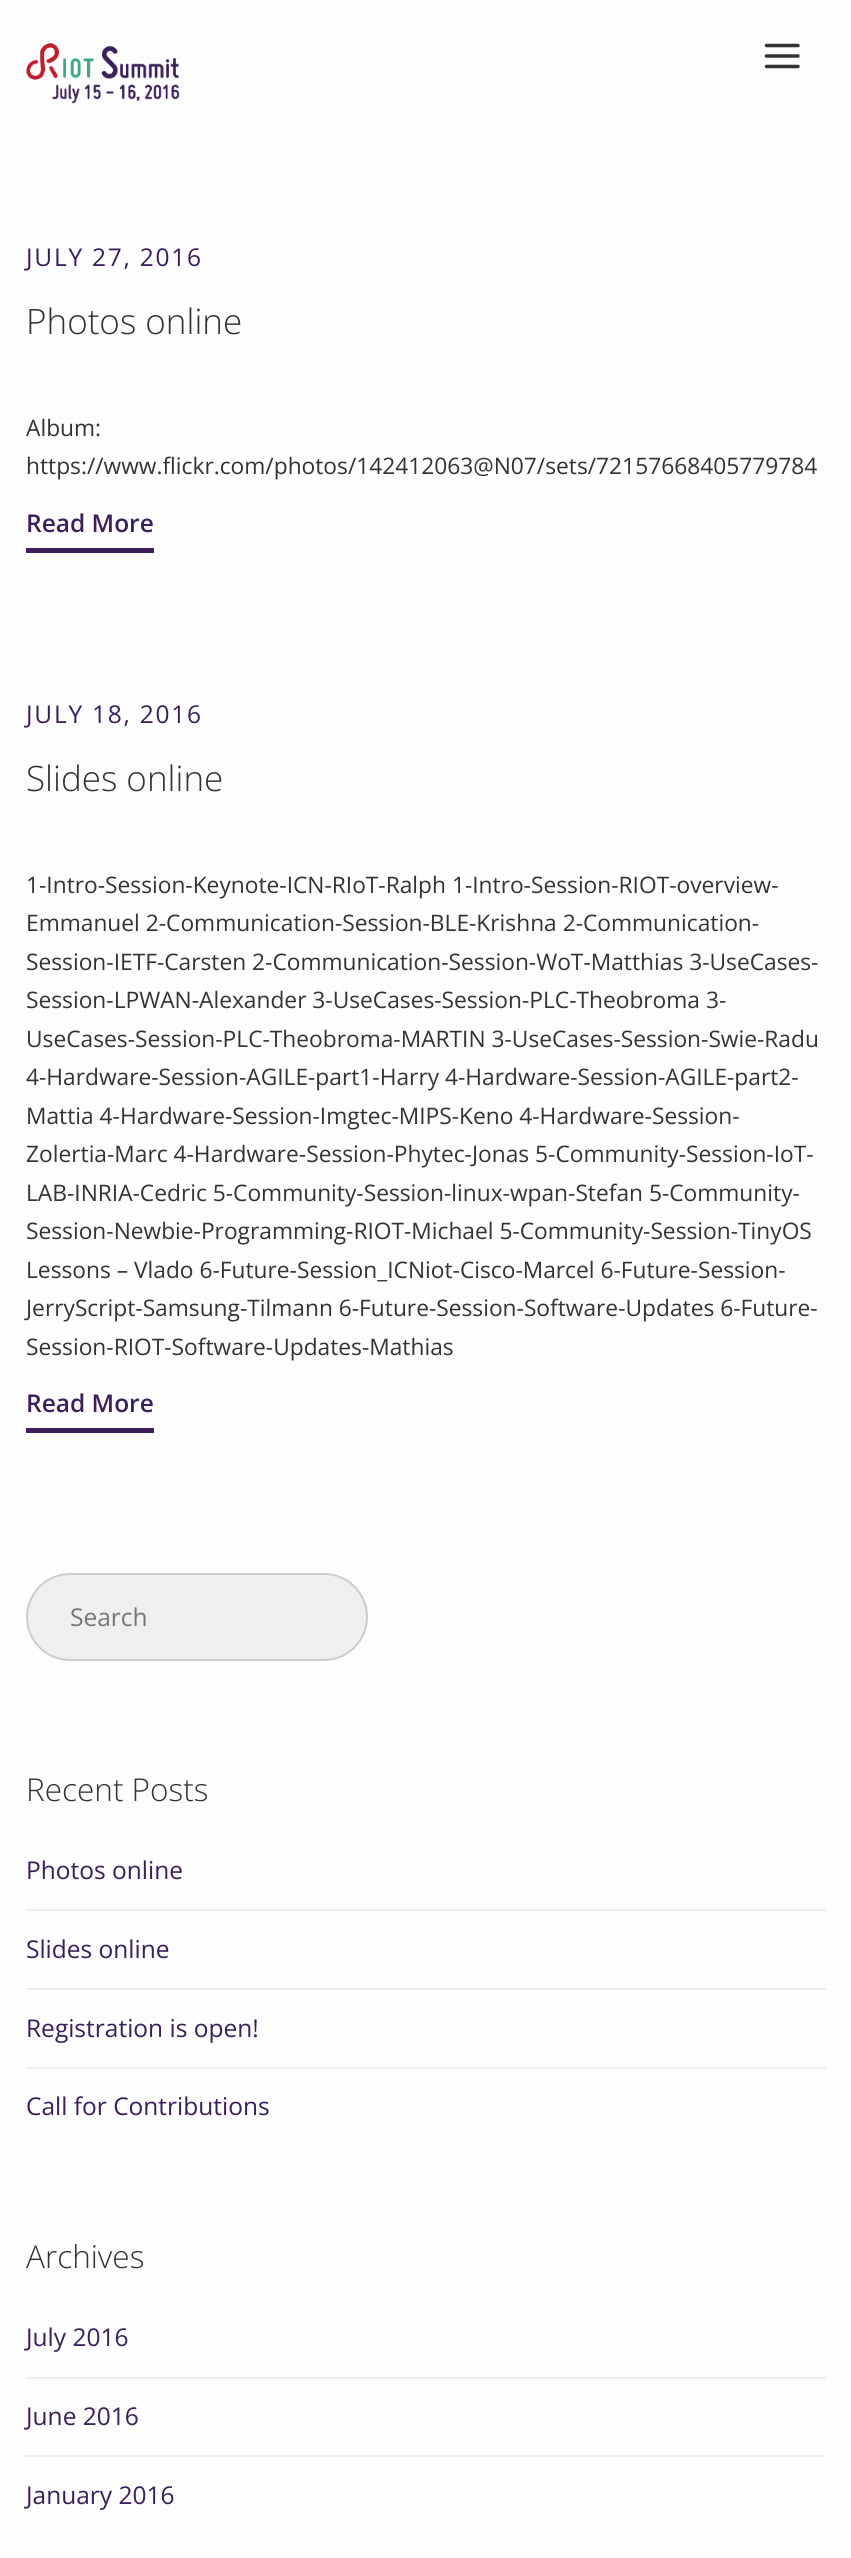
#include <cairo.h>
#include <math.h>
#include <stddef.h>

typedef struct { const char *family; double size; int italic, bold; unsigned color; } style_t;
static cairo_t *ctx;

static void ink(unsigned color) {
    cairo_set_source_rgb(ctx, (color >> 16) / 255.0, (color >> 8 & 255) / 255.0, (color & 255) / 255.0);
}

static void write(double x, double y, const char *s, const style_t *st) {
    cairo_select_font_face(ctx, st->family, st->italic ? CAIRO_FONT_SLANT_ITALIC : CAIRO_FONT_SLANT_NORMAL,
        st->bold ? CAIRO_FONT_WEIGHT_BOLD : CAIRO_FONT_WEIGHT_NORMAL);
    cairo_set_font_size(ctx, st->size);
    ink(st->color);
    cairo_move_to(ctx, x, y);
    cairo_show_text(ctx, s);
}

static void write_spaced(double x, double y, const char *s, double letter, double word) {
    cairo_move_to(ctx, x, y);
    while (*s) {
        char ch[5] = {0};
        int n = 0;
        do ch[n++] = *s++; while ((*s & 0xC0) == 0x80);
        cairo_show_text(ctx, ch);
        cairo_rel_move_to(ctx, letter + word * (*ch == ' '), 0);
    }
}

static void block(double x, double y, double w, double h, unsigned color) {
    ink(color);
    cairo_rectangle(ctx, x, y, w, h);
    cairo_fill(ctx);
}

static void round_path(double x, double y, double w, double h, double r) {
    cairo_new_sub_path(ctx);
    cairo_arc(ctx, x + w - r, y + h - r, r, 0, M_PI / 2);
    cairo_arc(ctx, x + r, y + h - r, r, M_PI / 2, M_PI);
    cairo_arc(ctx, x + r, y + r, r, M_PI, 1.5 * M_PI);
    cairo_arc(ctx, x + w - r, y + r, r, 1.5 * M_PI, 2 * M_PI);
    cairo_close_path(ctx);
}

static void paste(const char *path, double x, double y, double w, double h) {
    cairo_surface_t *image = cairo_image_surface_create_from_png(path);
    cairo_save(ctx);
    cairo_set_source_surface(ctx, image, x, y);
    cairo_rectangle(ctx, x, y, w, h);
    cairo_fill(ctx);
    cairo_restore(ctx);
    cairo_surface_destroy(image);
}

static const style_t s1 = {"Open Sans Light", 35, 0, 0, 0x333333};
static const style_t s2 = {"Open Sans", 22.75, 0, 0, 0x333333};
static const style_t s3 = {"Open Sans SemiBold", 24.5, 0, 0, 0x3c1f59};
static const style_t s4 = {"Open Sans", 24.5, 0, 0, 0x757575};
static const style_t s5 = {"Open Sans Light", 31.5, 0, 0, 0x333333};
static const style_t s6 = {"Open Sans", 24.5, 0, 0, 0x3c1f59};

int main(void) {
    cairo_surface_t *surface = cairo_image_surface_create(CAIRO_FORMAT_RGB24, 851, 2558);
    ctx = cairo_create(surface);
    cairo_font_options_t *options = cairo_font_options_create();
    cairo_font_options_set_hint_metrics(options, CAIRO_HINT_METRICS_OFF);
    cairo_font_options_set_hint_style(options, CAIRO_HINT_STYLE_NONE);
    cairo_set_font_options(ctx, options);
    cairo_set_miter_limit(ctx, 4);
    ink(0xfdfdfd);
    cairo_paint(ctx);
    paste("pic1.png", 26, 43, 154, 61);
    paste("pic2.png", 764, 43, 36, 26);
    cairo_select_font_face(ctx, "Open Sans", CAIRO_FONT_SLANT_NORMAL, CAIRO_FONT_WEIGHT_NORMAL);
    cairo_set_font_size(ctx, 24.5);
    ink(0x3c1f59);
    write_spaced(26, 266, "JULY 27, 2016", 1.75, 0);
    write(26, 334, "Photos online", &s1);
    write(26, 436, "Album:", &s2);
    write(26, 474, "https://www.flickr.com/photos/142412063@N07/sets/72157668405779784", &s2);
    block(26, 548, 128, 5, 0x3c1f59);
    write(26, 532, "Read More", &s3);
    cairo_select_font_face(ctx, "Open Sans", CAIRO_FONT_SLANT_NORMAL, CAIRO_FONT_WEIGHT_NORMAL);
    write_spaced(26, 723, "JULY 18, 2016", 1.75, 0);
    write(26, 791, "Slides online", &s1);
    write(26, 893, "1-Intro-Session-Keynote-ICN-RIoT-Ralph 1-Intro-Session-RIOT-overview-", &s2);
    write(26, 931, "Emmanuel 2-Communication-Session-BLE-Krishna 2-Communication-", &s2);
    write(26, 970, "Session-IETF-Carsten 2-Communication-Session-WoT-Matthias 3-UseCases-", &s2);
    write(26, 1008, "Session-LPWAN-Alexander 3-UseCases-Session-PLC-Theobroma 3-", &s2);
    write(26, 1047, "UseCases-Session-PLC-Theobroma-MARTIN 3-UseCases-Session-Swie-Radu", &s2);
    write(26, 1085, "4-Hardware-Session-AGILE-part1-Harry 4-Hardware-Session-AGILE-part2-", &s2);
    write(26, 1124, "Mattia 4-Hardware-Session-Imgtec-MIPS-Keno 4-Hardware-Session-", &s2);
    write(26, 1162, "Zolertia-Marc 4-Hardware-Session-Phytec-Jonas 5-Community-Session-IoT-", &s2);
    write(26, 1201, "LAB-INRIA-Cedric 5-Community-Session-linux-wpan-Stefan 5-Community-", &s2);
    write(26, 1239, "Session-Newbie-Programming-RIOT-Michael 5-Community-Session-TinyOS", &s2);
    write(26, 1278, "Lessons – Vlado 6-Future-Session_ICNiot-Cisco-Marcel 6-Future-Session-", &s2);
    write(26, 1316, "JerryScript-Samsung-Tilmann 6-Future-Session-Software-Updates 6-Future-", &s2);
    write(26, 1355, "Session-RIOT-Software-Updates-Mathias", &s2);
    block(26, 1428, 128, 5, 0x3c1f59);
    write(26, 1412, "Read More", &s3);
    ink(0xefefef);
    round_path(27, 1574, 340, 86, 43);
    cairo_fill_preserve(ctx);
    ink(0xcccccc);
    cairo_stroke(ctx);
    write(70, 1626, "Search", &s4);
    write(26, 1801, "Recent Posts", &s5);
    block(26, 1909, 800, 2, 0xeeeeee);
    write(26, 1879, "Photos online", &s6);
    block(26, 1988, 800, 2, 0xeeeeee);
    write(26, 1958, "Slides online", &s6);
    block(26, 2067, 800, 2, 0xeeeeee);
    write(26, 2037, "Registration is open!", &s6);
    write(26, 2115, "Call for Contributions", &s6);
    write(26, 2268, "Archives", &s5);
    block(26, 2377, 800, 2, 0xeeeeee);
    write(26, 2346, "July 2016", &s6);
    block(26, 2455, 800, 2, 0xeeeeee);
    write(26, 2425, "June 2016", &s6);
    write(26, 2504, "January 2016", &s6);
    cairo_surface_write_to_png(surface, "screenshot.png");
    cairo_font_options_destroy(options);
    cairo_destroy(ctx);
    cairo_surface_destroy(surface);
    return 0;
}
